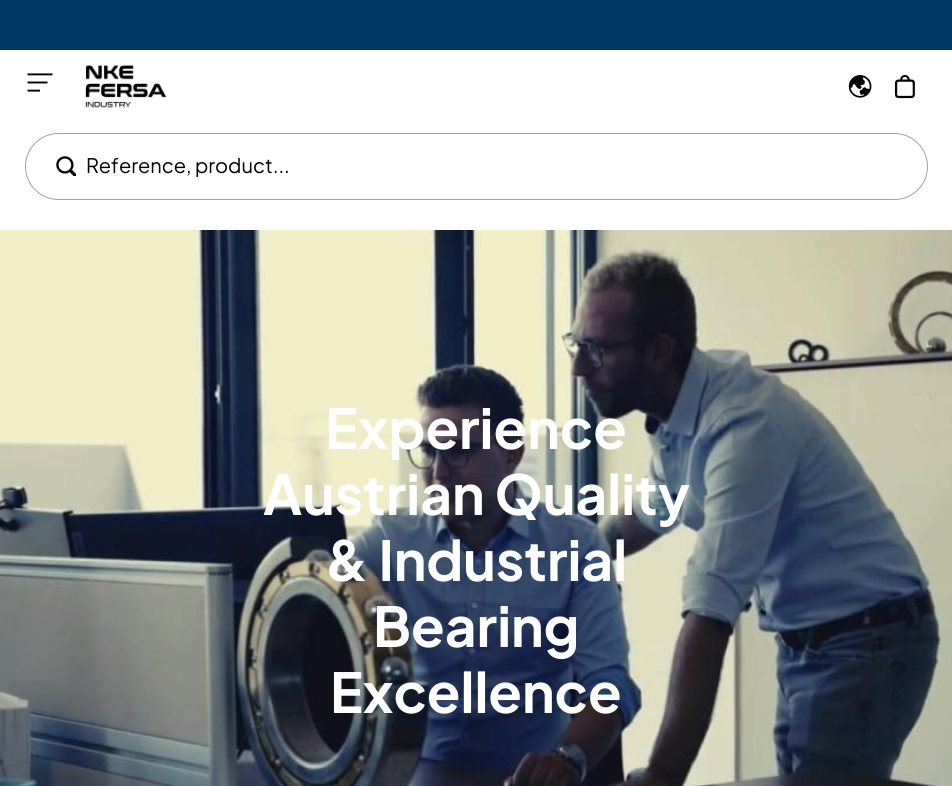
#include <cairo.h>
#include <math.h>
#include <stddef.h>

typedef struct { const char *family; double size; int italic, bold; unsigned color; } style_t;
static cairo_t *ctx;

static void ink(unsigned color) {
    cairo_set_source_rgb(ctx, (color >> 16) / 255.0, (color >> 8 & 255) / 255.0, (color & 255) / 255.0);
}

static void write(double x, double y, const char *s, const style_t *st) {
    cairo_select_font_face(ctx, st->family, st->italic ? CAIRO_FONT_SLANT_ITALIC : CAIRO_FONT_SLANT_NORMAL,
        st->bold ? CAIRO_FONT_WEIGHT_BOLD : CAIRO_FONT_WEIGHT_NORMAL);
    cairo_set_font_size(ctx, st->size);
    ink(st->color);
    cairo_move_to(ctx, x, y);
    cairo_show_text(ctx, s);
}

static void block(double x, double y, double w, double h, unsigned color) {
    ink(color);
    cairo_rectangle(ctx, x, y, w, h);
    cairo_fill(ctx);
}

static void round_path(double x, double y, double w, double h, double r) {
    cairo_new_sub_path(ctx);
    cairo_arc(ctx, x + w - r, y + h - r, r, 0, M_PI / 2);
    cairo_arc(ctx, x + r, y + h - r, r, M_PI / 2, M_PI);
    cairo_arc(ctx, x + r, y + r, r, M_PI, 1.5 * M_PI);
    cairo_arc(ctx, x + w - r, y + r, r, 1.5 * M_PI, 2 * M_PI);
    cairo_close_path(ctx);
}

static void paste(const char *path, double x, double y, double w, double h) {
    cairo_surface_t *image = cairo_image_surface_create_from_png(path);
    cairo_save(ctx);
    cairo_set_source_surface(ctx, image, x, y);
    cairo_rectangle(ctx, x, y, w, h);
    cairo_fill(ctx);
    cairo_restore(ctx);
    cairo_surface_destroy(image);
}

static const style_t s1 = {"Plus Jakarta Sans", 20, 0, 0, 0x000000};
static const style_t s2 = {"Plus Jakarta Sans", 55, 0, 1, 0xffffff};

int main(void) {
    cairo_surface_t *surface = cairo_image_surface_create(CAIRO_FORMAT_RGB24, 952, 786);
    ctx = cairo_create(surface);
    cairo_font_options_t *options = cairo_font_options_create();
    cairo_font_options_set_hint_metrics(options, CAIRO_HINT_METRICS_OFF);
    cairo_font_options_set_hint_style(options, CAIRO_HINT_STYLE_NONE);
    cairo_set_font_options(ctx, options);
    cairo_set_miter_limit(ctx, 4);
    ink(0xffffff);
    cairo_paint(ctx);
    block(0, 0, 952, 50, 0x003865);
    paste("pic1.png", 27, 73, 26, 19);
    paste("pic2.png", 85, 65, 82, 43);
    paste("pic3.png", 848, 75, 24, 23);
    paste("pic4.png", 895, 75, 20, 24);
    round_path(25.5, 133.5, 902, 66, 33);
    ink(0xa2a2a2);
    cairo_set_line_width(ctx, 1);
    cairo_stroke(ctx);
    paste("pic5.png", 56, 156, 20, 20);
    write(86, 173, "Reference, product...", &s1);
    paste("pic6.png", 0, 230, 952, 556);
    write(325, 449, "Experience", &s2);
    write(263, 515, "Austrian Quality", &s2);
    write(325, 581, "& Industrial", &s2);
    write(373, 647, "Bearing", &s2);
    write(330, 713, "Excellence", &s2);
    cairo_surface_write_to_png(surface, "screenshot.png");
    cairo_font_options_destroy(options);
    cairo_destroy(ctx);
    cairo_surface_destroy(surface);
    return 0;
}
